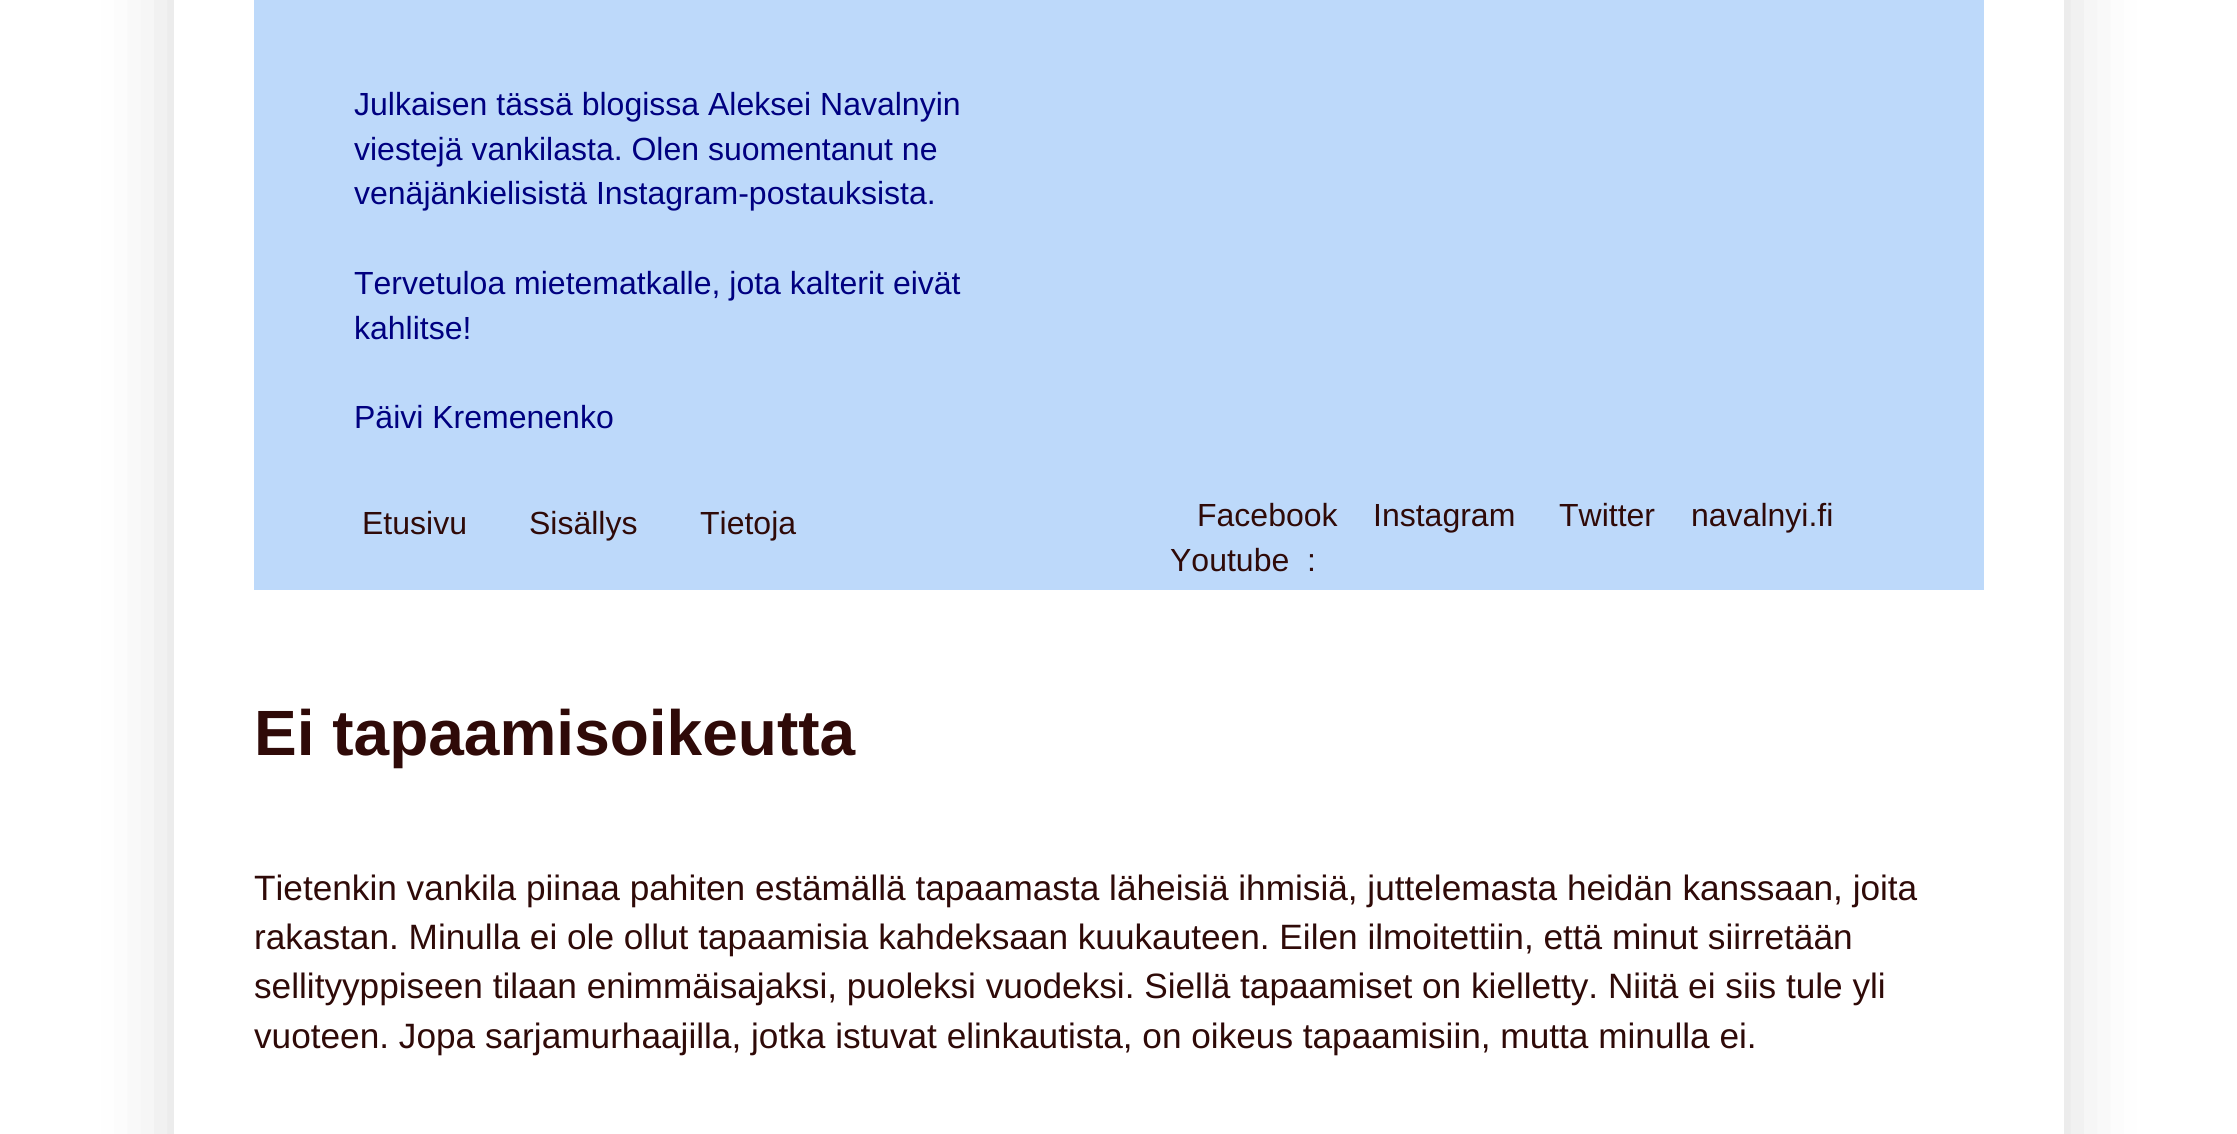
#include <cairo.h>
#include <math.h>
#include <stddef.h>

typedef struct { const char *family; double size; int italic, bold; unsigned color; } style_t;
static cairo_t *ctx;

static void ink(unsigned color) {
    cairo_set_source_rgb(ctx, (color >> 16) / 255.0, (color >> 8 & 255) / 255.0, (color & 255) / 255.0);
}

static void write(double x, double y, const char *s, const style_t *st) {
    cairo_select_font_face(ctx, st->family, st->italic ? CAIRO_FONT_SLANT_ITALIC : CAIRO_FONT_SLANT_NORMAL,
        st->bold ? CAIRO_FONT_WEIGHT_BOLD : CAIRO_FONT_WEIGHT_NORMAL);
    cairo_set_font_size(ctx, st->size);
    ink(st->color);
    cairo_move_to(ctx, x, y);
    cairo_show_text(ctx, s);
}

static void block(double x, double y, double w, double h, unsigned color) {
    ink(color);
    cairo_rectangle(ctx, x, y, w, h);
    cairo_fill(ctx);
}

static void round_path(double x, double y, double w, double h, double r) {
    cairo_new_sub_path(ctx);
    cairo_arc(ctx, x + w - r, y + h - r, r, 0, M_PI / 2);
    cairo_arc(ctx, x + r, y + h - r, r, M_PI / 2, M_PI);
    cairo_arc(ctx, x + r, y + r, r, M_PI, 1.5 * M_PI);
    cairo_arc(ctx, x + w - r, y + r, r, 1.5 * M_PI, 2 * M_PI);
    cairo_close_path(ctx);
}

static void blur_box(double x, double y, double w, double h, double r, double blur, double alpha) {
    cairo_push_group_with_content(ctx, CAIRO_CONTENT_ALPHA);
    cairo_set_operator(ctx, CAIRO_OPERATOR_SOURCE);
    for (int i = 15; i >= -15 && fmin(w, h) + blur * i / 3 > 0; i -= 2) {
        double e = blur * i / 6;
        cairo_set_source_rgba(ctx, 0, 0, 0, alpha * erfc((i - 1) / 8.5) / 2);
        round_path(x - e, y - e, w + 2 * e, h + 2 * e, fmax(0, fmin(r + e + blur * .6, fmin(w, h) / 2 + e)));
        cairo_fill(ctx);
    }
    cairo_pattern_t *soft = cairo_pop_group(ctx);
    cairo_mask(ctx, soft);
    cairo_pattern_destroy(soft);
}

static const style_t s1 = {"Liberation Sans", 32, 0, 0, 0x000080};
static const style_t s2 = {"Liberation Sans", 32, 0, 0, 0x2f0a08};
static const style_t s3 = {"Liberation Sans", 64, 0, 1, 0x2f0a08};
static const style_t s4 = {"Liberation Sans", 35.2, 0, 0, 0x2f0a08};

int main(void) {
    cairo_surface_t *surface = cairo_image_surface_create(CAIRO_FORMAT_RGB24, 2237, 1134);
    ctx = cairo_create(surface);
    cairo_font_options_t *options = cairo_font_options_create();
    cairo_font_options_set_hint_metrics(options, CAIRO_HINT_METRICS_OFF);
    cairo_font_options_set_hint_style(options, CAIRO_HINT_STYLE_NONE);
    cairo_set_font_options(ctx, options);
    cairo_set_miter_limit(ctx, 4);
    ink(0xffffff);
    cairo_paint(ctx);
    cairo_save(ctx);
    cairo_set_fill_rule(ctx, CAIRO_FILL_RULE_EVEN_ODD);
    cairo_new_path(ctx);
    cairo_move_to(ctx, 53, 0);
    cairo_line_to(ctx, 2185, 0);
    cairo_line_to(ctx, 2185, 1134);
    cairo_line_to(ctx, 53, 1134);
    cairo_close_path(ctx);
    cairo_move_to(ctx, 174, -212);
    cairo_line_to(ctx, 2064, -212);
    cairo_line_to(ctx, 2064, 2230);
    cairo_line_to(ctx, 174, 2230);
    cairo_close_path(ctx);
    cairo_clip(ctx);
    ink(0x000000);
    blur_box(174, -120, 1890, 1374, 0, 40, 0.15);
    cairo_restore(ctx);
    block(254, 0, 1730, 590, 0xbdd9fa);
    write(354, 115, "Julkaisen tässä blogissa Aleksei Navalnyin", &s1);
    write(354, 160, "viestejä vankilasta. Olen suomentanut ne", &s1);
    write(354, 204, "venäjänkielisistä Instagram-postauksista.", &s1);
    write(354, 294, "Tervetuloa mietematkalle, jota kalterit eivät", &s1);
    write(354, 339, "kahlitse!", &s1);
    write(354, 428, "Päivi Kremenenko", &s1);
    write(362, 534, "Etusivu", &s2);
    write(529, 534, "Sisällys", &s2);
    write(700, 534, "Tietoja", &s2);
    write(1197, 526, "Facebook", &s2);
    write(1373, 526, "Instagram", &s2);
    write(1559, 526, "Twitter", &s2);
    write(1691, 526, "navalnyi.fi", &s2);
    write(1170, 571, "Youtube", &s2);
    write(1307, 571, ":", &s2);
    write(254, 755, "Ei tapaamisoikeutta", &s3);
    write(254, 900, "Tietenkin vankila piinaa pahiten estämällä tapaamasta läheisiä ihmisiä, juttelemasta heidän kanssaan, joita", &s4);
    write(254, 949, "rakastan. Minulla ei ole ollut tapaamisia kahdeksaan kuukauteen. Eilen ilmoitettiin, että minut siirretään", &s4);
    write(254, 998, "sellityyppiseen tilaan enimmäisajaksi, puoleksi vuodeksi. Siellä tapaamiset on kielletty. Niitä ei siis tule yli", &s4);
    write(254, 1048, "vuoteen. Jopa sarjamurhaajilla, jotka istuvat elinkautista, on oikeus tapaamisiin, mutta minulla ei.", &s4);
    cairo_surface_write_to_png(surface, "screenshot.png");
    cairo_font_options_destroy(options);
    cairo_destroy(ctx);
    cairo_surface_destroy(surface);
    return 0;
}
